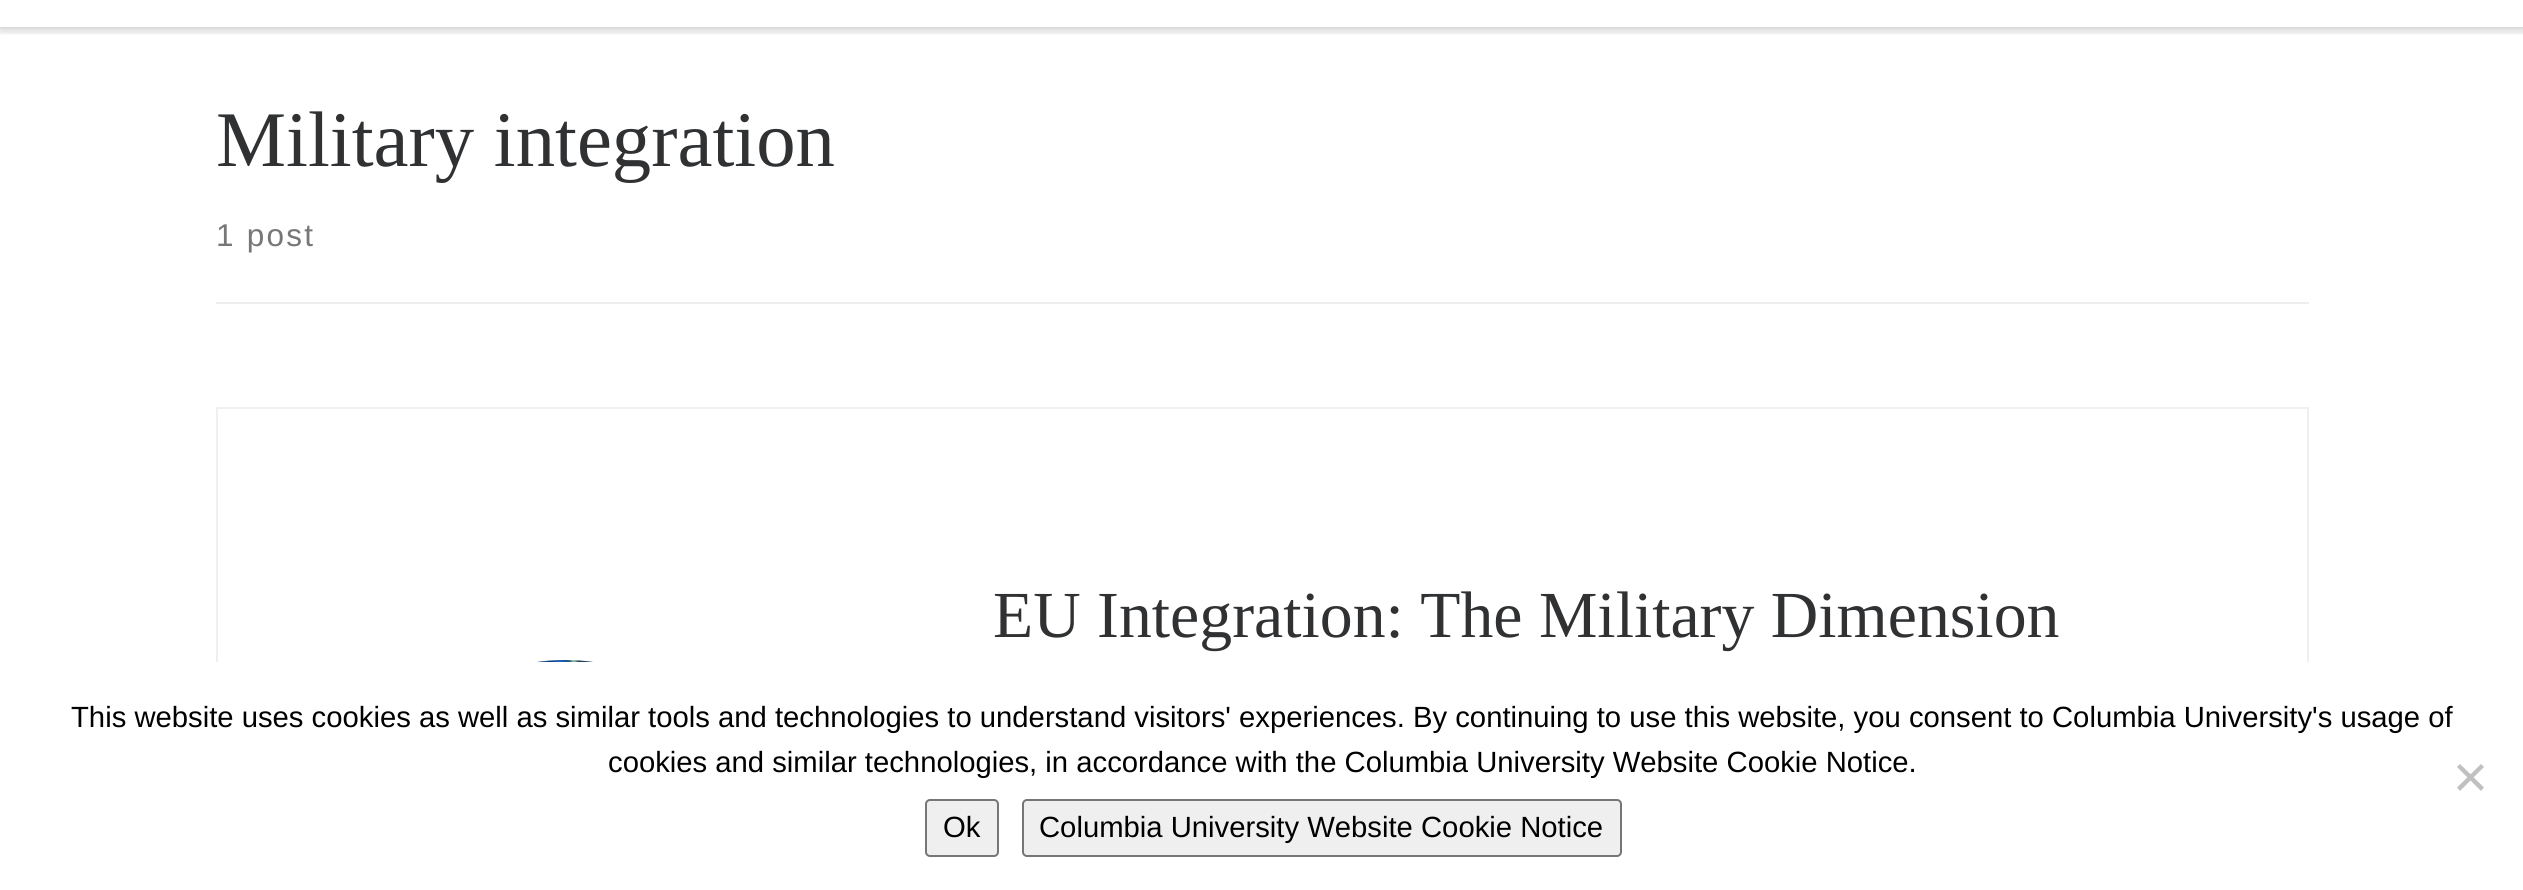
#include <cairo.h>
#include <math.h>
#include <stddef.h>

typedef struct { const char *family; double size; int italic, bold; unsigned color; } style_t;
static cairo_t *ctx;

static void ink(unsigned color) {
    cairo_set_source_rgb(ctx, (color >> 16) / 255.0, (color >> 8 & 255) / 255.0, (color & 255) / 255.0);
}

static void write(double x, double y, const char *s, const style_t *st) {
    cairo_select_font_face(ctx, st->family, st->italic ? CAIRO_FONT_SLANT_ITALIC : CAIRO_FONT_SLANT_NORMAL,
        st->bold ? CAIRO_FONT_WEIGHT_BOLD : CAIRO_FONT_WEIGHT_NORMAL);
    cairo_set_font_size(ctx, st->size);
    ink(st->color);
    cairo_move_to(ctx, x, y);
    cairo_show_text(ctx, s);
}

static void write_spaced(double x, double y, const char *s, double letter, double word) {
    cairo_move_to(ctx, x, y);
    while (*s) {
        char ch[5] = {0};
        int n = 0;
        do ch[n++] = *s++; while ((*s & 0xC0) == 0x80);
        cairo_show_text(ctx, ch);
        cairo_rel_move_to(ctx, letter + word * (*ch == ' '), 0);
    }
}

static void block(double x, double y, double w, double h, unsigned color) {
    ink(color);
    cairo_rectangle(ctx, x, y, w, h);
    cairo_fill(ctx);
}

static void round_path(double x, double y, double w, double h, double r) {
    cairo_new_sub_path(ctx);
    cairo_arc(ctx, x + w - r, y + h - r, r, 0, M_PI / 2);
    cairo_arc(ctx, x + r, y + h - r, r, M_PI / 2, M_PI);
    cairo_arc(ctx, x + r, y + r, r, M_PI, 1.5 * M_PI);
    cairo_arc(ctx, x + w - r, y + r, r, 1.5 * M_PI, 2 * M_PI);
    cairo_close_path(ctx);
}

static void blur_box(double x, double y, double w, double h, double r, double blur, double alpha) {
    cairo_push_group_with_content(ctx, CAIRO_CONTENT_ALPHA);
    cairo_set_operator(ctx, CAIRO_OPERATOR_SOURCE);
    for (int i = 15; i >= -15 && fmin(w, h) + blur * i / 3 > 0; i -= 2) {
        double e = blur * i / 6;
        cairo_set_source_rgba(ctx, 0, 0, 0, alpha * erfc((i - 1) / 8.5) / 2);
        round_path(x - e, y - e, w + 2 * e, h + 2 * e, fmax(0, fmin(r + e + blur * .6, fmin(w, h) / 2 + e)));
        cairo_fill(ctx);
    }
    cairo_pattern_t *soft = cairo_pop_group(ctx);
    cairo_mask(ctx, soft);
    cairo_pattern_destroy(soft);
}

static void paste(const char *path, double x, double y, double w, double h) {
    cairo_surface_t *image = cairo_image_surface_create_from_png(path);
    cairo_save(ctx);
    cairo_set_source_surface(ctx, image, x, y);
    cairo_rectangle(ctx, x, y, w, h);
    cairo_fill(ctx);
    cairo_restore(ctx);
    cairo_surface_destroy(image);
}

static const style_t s1 = {"Liberation Serif", 78.75, 0, 0, 0x303133};
static const style_t s2 = {"Liberation Serif", 65.75, 0, 0, 0x303133};
static const style_t s3 = {"Liberation Sans", 29.25, 0, 0, 0x000000};

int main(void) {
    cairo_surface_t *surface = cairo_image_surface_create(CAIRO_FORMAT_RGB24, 2523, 890);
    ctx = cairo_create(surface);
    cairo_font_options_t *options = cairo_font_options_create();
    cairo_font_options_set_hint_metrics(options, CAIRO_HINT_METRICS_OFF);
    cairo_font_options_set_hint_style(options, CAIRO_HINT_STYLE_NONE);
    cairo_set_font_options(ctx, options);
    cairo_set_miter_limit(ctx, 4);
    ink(0xffffff);
    cairo_paint(ctx);
    cairo_save(ctx);
    cairo_rectangle(ctx, 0, 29, 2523, 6);
    cairo_clip(ctx);
    ink(0x666666);
    blur_box(0, -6, 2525, 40, 0, 2, 0.08);
    cairo_restore(ctx);
    ink(0xefefef);
    cairo_new_path(ctx);
    cairo_move_to(ctx, 0, 27);
    cairo_line_to(ctx, 0, 29);
    cairo_line_to(ctx, 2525, 29);
    cairo_line_to(ctx, 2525, -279);
    cairo_line_to(ctx, 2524, -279);
    cairo_line_to(ctx, 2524, 27);
    cairo_close_path(ctx);
    cairo_fill(ctx);
    cairo_save(ctx);
    cairo_rectangle(ctx, 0, 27, 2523, 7);
    cairo_clip(ctx);
    ink(0x000000);
    blur_box(0, -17, 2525, 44, 0, 5.5, 0.2);
    cairo_restore(ctx);
    write(216, 166, "Military integration", &s1);
    cairo_select_font_face(ctx, "Liberation Sans", CAIRO_FONT_SLANT_NORMAL, CAIRO_FONT_WEIGHT_NORMAL);
    cairo_set_font_size(ctx, 31.5);
    ink(0x777777);
    write_spaced(216, 246, "1 post", 2.25, 0);
    block(216, 302, 2093, 2, 0xeceeef);
    paste("pic1.png", 537, 660, 56, 2);
    cairo_save(ctx);
    cairo_rectangle(ctx, 261, 569, 608, 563);
    cairo_clip(ctx);
    round_path(205, 491, 720, 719, 359.5);
    ink(0xffffff);
    cairo_set_line_width(ctx, 338);
    cairo_stroke(ctx);
    cairo_restore(ctx);
    cairo_rectangle(ctx, 217, 408, 2091, 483);
    ink(0xefefef);
    cairo_stroke(ctx);
    write(993, 637, "EU Integration: The Military Dimension", &s2);
    block(216, 662, 2093, 228, 0xffffff);
    write(71, 727, "This website uses cookies as well as similar tools and technologies to understand visitors' experiences. By continuing to use this website, you consent to Columbia University's usage of", &s3);
    write(608, 772, "cookies and similar technologies, in accordance with the Columbia University Website Cookie Notice.", &s3);
    ink(0xc0c0c0);
    cairo_new_path(ctx);
    cairo_move_to(ctx, 2481, 764);
    cairo_line_to(ctx, 2484, 767);
    cairo_line_to(ctx, 2460, 791);
    cairo_line_to(ctx, 2457, 787.5);
    cairo_close_path(ctx);
    cairo_fill(ctx);
    cairo_new_path(ctx);
    cairo_move_to(ctx, 2457, 767);
    cairo_line_to(ctx, 2460, 764);
    cairo_line_to(ctx, 2484, 787.5);
    cairo_line_to(ctx, 2481, 791);
    cairo_close_path(ctx);
    cairo_fill(ctx);
    ink(0xefefef);
    round_path(926, 800, 72, 56, 4);
    cairo_fill_preserve(ctx);
    ink(0x767676);
    cairo_stroke(ctx);
    write(943, 837, "Ok", &s3);
    ink(0xefefef);
    round_path(1023, 800, 598, 56, 4);
    cairo_fill_preserve(ctx);
    ink(0x767676);
    cairo_stroke(ctx);
    write(1039, 837, "Columbia University Website Cookie Notice", &s3);
    cairo_surface_write_to_png(surface, "screenshot.png");
    cairo_font_options_destroy(options);
    cairo_destroy(ctx);
    cairo_surface_destroy(surface);
    return 0;
}
